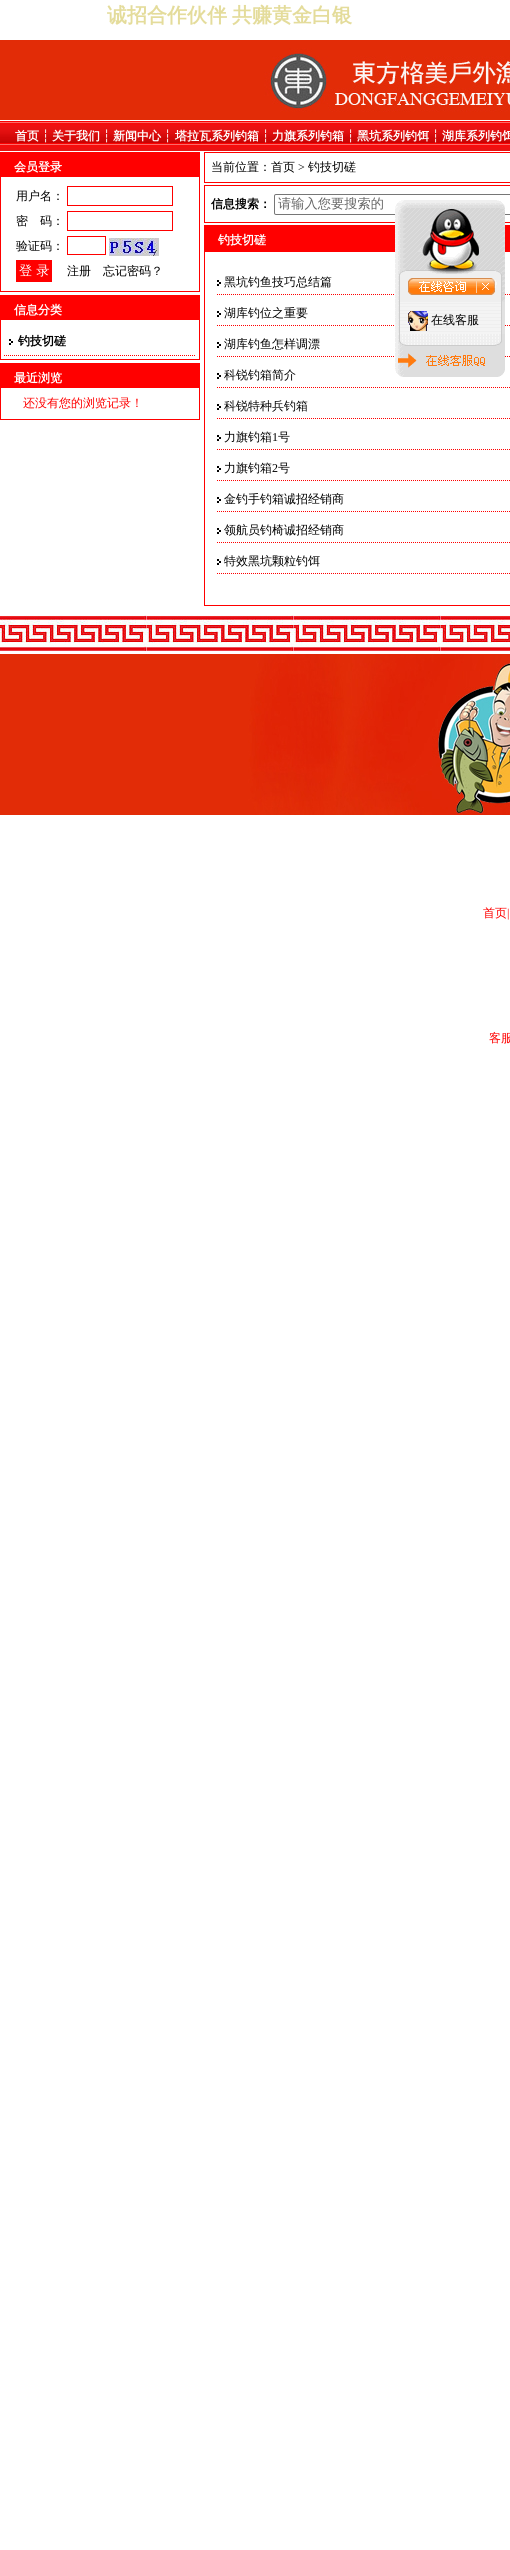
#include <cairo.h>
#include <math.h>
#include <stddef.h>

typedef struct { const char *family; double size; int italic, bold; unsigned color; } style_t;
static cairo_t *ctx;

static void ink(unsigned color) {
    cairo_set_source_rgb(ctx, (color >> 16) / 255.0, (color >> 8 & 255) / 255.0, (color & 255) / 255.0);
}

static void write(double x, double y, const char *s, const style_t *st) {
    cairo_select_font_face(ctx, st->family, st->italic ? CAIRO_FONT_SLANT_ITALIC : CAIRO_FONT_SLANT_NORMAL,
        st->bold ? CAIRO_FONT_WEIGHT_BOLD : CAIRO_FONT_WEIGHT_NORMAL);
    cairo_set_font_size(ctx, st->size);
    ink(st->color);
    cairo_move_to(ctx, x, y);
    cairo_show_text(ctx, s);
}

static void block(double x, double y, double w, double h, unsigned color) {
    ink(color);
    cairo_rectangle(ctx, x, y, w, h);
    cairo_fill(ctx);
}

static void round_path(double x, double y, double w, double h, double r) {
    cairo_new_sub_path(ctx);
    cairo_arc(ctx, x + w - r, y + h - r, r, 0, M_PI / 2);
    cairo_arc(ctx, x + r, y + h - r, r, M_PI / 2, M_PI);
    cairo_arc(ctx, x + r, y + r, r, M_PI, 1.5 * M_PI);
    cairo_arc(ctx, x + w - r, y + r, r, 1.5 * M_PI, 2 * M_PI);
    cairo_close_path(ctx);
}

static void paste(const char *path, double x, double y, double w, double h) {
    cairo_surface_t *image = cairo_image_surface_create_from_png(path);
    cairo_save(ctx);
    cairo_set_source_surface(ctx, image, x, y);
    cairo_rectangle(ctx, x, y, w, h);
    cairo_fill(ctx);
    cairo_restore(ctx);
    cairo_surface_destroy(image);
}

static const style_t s1 = {"WenQuanYi Zen Hei", 20, 0, 1, 0xe4dc9b};
static const style_t s2 = {"WenQuanYi Zen Hei", 12, 0, 1, 0xffffff};
static const style_t s3 = {"DejaVu Sans", 12, 0, 0, 0xffffff};
static const style_t s4 = {"WenQuanYi Zen Hei Medium", 12, 0, 0, 0x000000};
static const style_t s5 = {"WenQuanYi Zen Hei Medium", 13.25, 0, 0, 0xffffff};
static const style_t s6 = {"WenQuanYi Zen Hei", 12, 0, 1, 0x000000};
static const style_t s7 = {"WenQuanYi Zen Hei Medium", 12, 0, 0, 0xff0000};
static const style_t s8 = {"Liberation Serif", 12, 0, 0, 0x000000};
static const style_t s9 = {"WenQuanYi Zen Hei Medium", 13.25, 0, 0, 0x666666};
static const style_t s10 = {"Liberation Serif", 12, 0, 0, 0xff0000};

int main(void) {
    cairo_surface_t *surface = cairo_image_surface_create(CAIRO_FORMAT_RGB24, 510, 2550);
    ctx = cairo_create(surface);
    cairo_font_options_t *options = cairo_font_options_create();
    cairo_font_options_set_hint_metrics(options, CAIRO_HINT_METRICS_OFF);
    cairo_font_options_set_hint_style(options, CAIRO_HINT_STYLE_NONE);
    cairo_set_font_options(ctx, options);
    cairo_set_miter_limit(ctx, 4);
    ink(0xffffff);
    cairo_paint(ctx);
    write(107, 22, "诚招合作伙伴", &s1);
    write(232, 22, "共赚黄金白银", &s1);
    paste("pic1.png", 0, 40, 510, 80);
    paste("pic2.png", 0, 121, 510, 30);
    write(15, 140, "首页", &s2);
    write(42, 140, "┆", &s3);
    write(52, 140, "关于我们", &s2);
    write(103, 140, "┆", &s3);
    write(113, 140, "新闻中心", &s2);
    write(164, 140, "┆", &s3);
    write(175, 140, "塔拉瓦系列钓箱", &s2);
    write(262, 140, "┆", &s3);
    write(272, 140, "力旗系列钓箱", &s2);
    write(347, 140, "┆", &s3);
    write(357, 140, "黑坑系列钓饵", &s2);
    write(432, 140, "┆", &s3);
    write(442, 140, "湖库系列钓饵", &s2);
    cairo_rectangle(ctx, 0.5, 152.5, 199, 139);
    ink(0xff0000);
    cairo_set_line_width(ctx, 1);
    cairo_stroke(ctx);
    block(1, 153, 198, 24, 0xff0000);
    write(14, 171, "会员登录", &s2);
    write(16, 200, "用户名：", &s4);
    cairo_rectangle(ctx, 67.5, 186.5, 105, 19);
    ink(0xff0000);
    cairo_stroke(ctx);
    write(16, 225, "密　码：", &s4);
    cairo_rectangle(ctx, 67.5, 211.5, 105, 19);
    ink(0xff0000);
    cairo_stroke(ctx);
    write(16, 250, "验证码：", &s4);
    cairo_rectangle(ctx, 67.5, 236.5, 38, 18);
    ink(0xff0000);
    cairo_stroke(ctx);
    paste("pic3.png", 109, 238, 50, 18);
    block(16, 260, 36, 22, 0xff0000);
    write(19, 275, "登 录", &s5);
    write(67, 275, "注册", &s4);
    write(103, 275, "忘记密码？", &s4);
    cairo_rectangle(ctx, 0.5, 295.5, 199, 64);
    ink(0xff0000);
    cairo_stroke(ctx);
    block(1, 296, 198, 24, 0xff0000);
    write(14, 314, "信息分类", &s2);
    cairo_new_path(ctx);
    cairo_move_to(ctx, 4, 355.5);
    cairo_line_to(ctx, 196, 355.5);
    ink(0xff0000);
    cairo_set_dash(ctx, (double[]){1, 1}, 2, 0);
    cairo_stroke(ctx);
    paste("pic4.png", 9, 339, 4, 6);
    write(18, 345, "钓技切磋", &s6);
    cairo_rectangle(ctx, 0.5, 363.5, 199, 56);
    ink(0xff0000);
    cairo_set_dash(ctx, NULL, 0, 0);
    cairo_stroke(ctx);
    block(1, 364, 198, 24, 0xff0000);
    write(14, 382, "最近浏览", &s2);
    write(23, 407, "还没有您的浏览记录！", &s7);
    cairo_rectangle(ctx, 204.5, 152.5, 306, 30);
    cairo_stroke(ctx);
    write(211, 171, "当前位置：首页", &s4);
    write(298, 171, ">", &s8);
    write(308, 171, "钓技切磋", &s4);
    cairo_rectangle(ctx, 204.5, 185.5, 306, 37);
    ink(0xff0000);
    cairo_stroke(ctx);
    write(211, 208, "信息搜索：", &s6);
    round_path(274.5, 194.5, 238, 20, 1.5);
    ink(0x767676);
    cairo_stroke(ctx);
    write(278, 208, "请输入您要搜索的", &s9);
    cairo_rectangle(ctx, 204.5, 225.5, 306, 380);
    ink(0xff0000);
    cairo_stroke(ctx);
    block(205, 226, 305, 26, 0xff0000);
    write(218, 244, "钓技切磋", &s2);
    cairo_new_path(ctx);
    cairo_move_to(ctx, 217, 294.5);
    cairo_line_to(ctx, 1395, 294.5);
    ink(0xff0000);
    cairo_set_dash(ctx, (double[]){1, 1}, 2, 0);
    cairo_stroke(ctx);
    paste("pic4.png", 217, 280, 4, 6);
    write(224, 286, "黑坑钓鱼技巧总结篇", &s4);
    cairo_new_path(ctx);
    cairo_move_to(ctx, 217, 325.5);
    cairo_line_to(ctx, 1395, 325.5);
    ink(0xff0000);
    cairo_stroke(ctx);
    paste("pic4.png", 217, 311, 4, 6);
    write(224, 317, "湖库钓位之重要", &s4);
    cairo_new_path(ctx);
    cairo_move_to(ctx, 217, 356.5);
    cairo_line_to(ctx, 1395, 356.5);
    ink(0xff0000);
    cairo_stroke(ctx);
    paste("pic4.png", 217, 342, 4, 6);
    write(224, 348, "湖库钓鱼怎样调漂", &s4);
    cairo_new_path(ctx);
    cairo_move_to(ctx, 217, 387.5);
    cairo_line_to(ctx, 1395, 387.5);
    ink(0xff0000);
    cairo_stroke(ctx);
    paste("pic4.png", 217, 373, 4, 6);
    write(224, 379, "科锐钓箱简介", &s4);
    cairo_new_path(ctx);
    cairo_move_to(ctx, 217, 418.5);
    cairo_line_to(ctx, 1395, 418.5);
    ink(0xff0000);
    cairo_stroke(ctx);
    paste("pic4.png", 217, 404, 4, 6);
    write(224, 410, "科锐特种兵钓箱", &s4);
    cairo_new_path(ctx);
    cairo_move_to(ctx, 217, 449.5);
    cairo_line_to(ctx, 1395, 449.5);
    ink(0xff0000);
    cairo_stroke(ctx);
    paste("pic4.png", 217, 435, 4, 6);
    write(224, 441, "力旗钓箱", &s4);
    write(272, 441, "1", &s8);
    write(278, 441, "号", &s4);
    cairo_new_path(ctx);
    cairo_move_to(ctx, 217, 480.5);
    cairo_line_to(ctx, 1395, 480.5);
    ink(0xff0000);
    cairo_stroke(ctx);
    paste("pic4.png", 217, 466, 4, 6);
    write(224, 472, "力旗钓箱", &s4);
    write(272, 472, "2", &s8);
    write(278, 472, "号", &s4);
    cairo_new_path(ctx);
    cairo_move_to(ctx, 217, 511.5);
    cairo_line_to(ctx, 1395, 511.5);
    ink(0xff0000);
    cairo_stroke(ctx);
    paste("pic4.png", 217, 497, 4, 6);
    write(224, 503, "金钓手钓箱诚招经销商", &s4);
    cairo_new_path(ctx);
    cairo_move_to(ctx, 217, 542.5);
    cairo_line_to(ctx, 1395, 542.5);
    ink(0xff0000);
    cairo_stroke(ctx);
    paste("pic4.png", 217, 528, 4, 6);
    write(224, 534, "领航员钓椅诚招经销商", &s4);
    cairo_new_path(ctx);
    cairo_move_to(ctx, 217, 573.5);
    cairo_line_to(ctx, 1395, 573.5);
    ink(0xff0000);
    cairo_stroke(ctx);
    paste("pic4.png", 217, 559, 4, 6);
    write(224, 565, "特效黑坑颗粒钓饵", &s4);
    paste("pic5.png", 395, 200, 110, 102);
    paste("pic6.png", 395, 302, 110, 32);
    paste("pic7.png", 408, 311, 20, 20);
    write(431, 324, "在线客服", &s4);
    paste("pic8.png", 395, 334, 110, 43);
    paste("pic9.png", 0, 615, 510, 200);
    write(483, 917, "首页", &s7);
    write(507, 917, "|", &s10);
    write(489, 1042, "客服", &s7);
    cairo_surface_write_to_png(surface, "screenshot.png");
    cairo_font_options_destroy(options);
    cairo_destroy(ctx);
    cairo_surface_destroy(surface);
    return 0;
}
